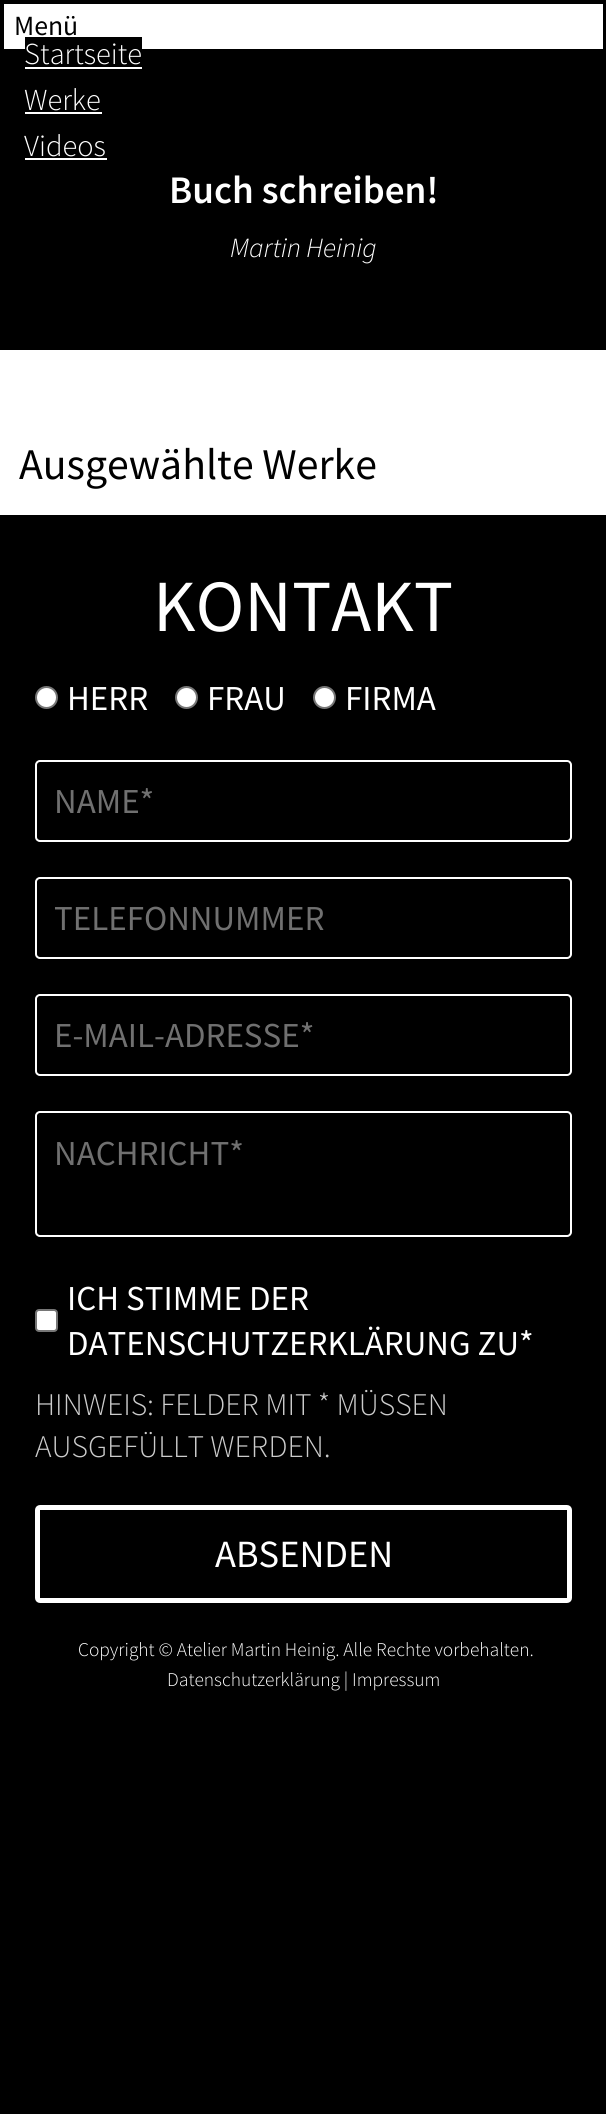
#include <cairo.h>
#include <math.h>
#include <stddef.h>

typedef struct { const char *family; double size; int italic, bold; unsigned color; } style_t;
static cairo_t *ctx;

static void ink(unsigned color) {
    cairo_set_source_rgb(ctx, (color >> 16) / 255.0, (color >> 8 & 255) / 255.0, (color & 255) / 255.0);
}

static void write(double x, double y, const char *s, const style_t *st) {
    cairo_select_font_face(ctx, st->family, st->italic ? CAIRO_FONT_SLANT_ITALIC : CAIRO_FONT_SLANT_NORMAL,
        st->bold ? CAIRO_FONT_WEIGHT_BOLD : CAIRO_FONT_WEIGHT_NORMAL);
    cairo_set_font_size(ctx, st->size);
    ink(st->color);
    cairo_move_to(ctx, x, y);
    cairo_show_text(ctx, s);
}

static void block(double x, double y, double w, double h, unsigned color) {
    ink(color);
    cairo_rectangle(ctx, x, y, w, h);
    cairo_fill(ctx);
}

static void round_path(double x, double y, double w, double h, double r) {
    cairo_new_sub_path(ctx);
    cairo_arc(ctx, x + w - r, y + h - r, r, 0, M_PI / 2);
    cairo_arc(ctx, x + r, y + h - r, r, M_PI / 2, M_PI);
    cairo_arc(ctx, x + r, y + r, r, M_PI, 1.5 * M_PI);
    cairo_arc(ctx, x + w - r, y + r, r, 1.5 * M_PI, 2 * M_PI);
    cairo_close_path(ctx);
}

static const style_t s1 = {"Source Sans Pro", 27.75, 0, 0, 0x000000};
static const style_t s2 = {"Source Sans Pro Light", 30.5, 0, 0, 0xffffff};
static const style_t s3 = {"Source Sans Pro SemiBold", 39, 0, 0, 0xffffff};
static const style_t s4 = {"Source Sans Pro Light", 27.75, 1, 0, 0xffffff};
static const style_t s5 = {"Source Sans Pro", 43.75, 0, 0, 0x000000};
static const style_t s6 = {"Source Sans Pro", 73.5, 0, 0, 0xffffff};
static const style_t s7 = {"Source Sans Pro", 35, 0, 0, 0xffffff};
static const style_t s8 = {"Source Sans Pro", 35, 0, 0, 0x707070};
static const style_t s9 = {"Source Sans Pro Light", 31.5, 0, 0, 0xcccccc};
static const style_t s10 = {"Source Sans Pro", 38.5, 0, 0, 0xffffff};
static const style_t s11 = {"Source Sans Pro Light", 19.4, 0, 0, 0xffffff};

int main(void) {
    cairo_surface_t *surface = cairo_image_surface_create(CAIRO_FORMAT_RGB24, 606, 2114);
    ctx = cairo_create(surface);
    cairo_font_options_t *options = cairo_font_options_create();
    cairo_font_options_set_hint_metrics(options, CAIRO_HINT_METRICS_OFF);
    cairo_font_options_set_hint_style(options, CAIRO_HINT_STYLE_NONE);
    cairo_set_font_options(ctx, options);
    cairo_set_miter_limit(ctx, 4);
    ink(0xffffff);
    cairo_paint(ctx);
    cairo_rectangle(ctx, 2, 2, 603, 49);
    ink(0x000000);
    cairo_set_line_width(ctx, 4);
    cairo_stroke(ctx);
    write(14, 35, "Menü", &s1);
    block(25, 37, 117, 12, 0x000000);
    block(0, 53, 606, 297, 0x000000);
    write(24, 64, "Startseite", &s2);
    block(25, 67, 117, 2, 0xffffff);
    write(24, 110, "Werke", &s2);
    block(25, 112, 77, 2, 0xffffff);
    write(24, 156, "Videos", &s2);
    block(25, 158, 82, 2, 0xffffff);
    write(169, 203, "Buch schreiben!", &s3);
    write(230, 257, "Martin Heinig", &s4);
    write(19, 479, "Ausgewählte Werke", &s5);
    block(0, 515, 606, 1599, 0x000000);
    write(153, 631, "KONTAKT", &s6);
    cairo_new_path(ctx);
    cairo_arc(ctx, 46.5, 697.5, 10.5, 0, 2 * M_PI);
    cairo_fill_preserve(ctx);
    ink(0x767676);
    cairo_set_line_width(ctx, 2);
    cairo_stroke(ctx);
    write(67, 710, "HERR", &s7);
    cairo_new_path(ctx);
    cairo_arc(ctx, 186.5, 697.5, 10.5, 0, 2 * M_PI);
    cairo_fill_preserve(ctx);
    ink(0x767676);
    cairo_stroke(ctx);
    write(207, 710, "FRAU", &s7);
    cairo_new_path(ctx);
    cairo_arc(ctx, 324.5, 697.5, 10.5, 0, 2 * M_PI);
    cairo_fill_preserve(ctx);
    ink(0x767676);
    cairo_stroke(ctx);
    write(345, 710, "FIRMA", &s7);
    round_path(36, 761, 535, 80, 4);
    cairo_stroke(ctx);
    write(54, 813, "NAME*", &s8);
    round_path(36, 878, 535, 80, 4);
    ink(0xffffff);
    cairo_stroke(ctx);
    write(54, 930, "TELEFONNUMMER", &s8);
    round_path(36, 995, 535, 80, 4);
    ink(0xffffff);
    cairo_stroke(ctx);
    write(54, 1047, "E-MAIL-ADRESSE*", &s8);
    round_path(36, 1112, 535, 124, 4);
    ink(0xffffff);
    cairo_stroke(ctx);
    write(54, 1165, "NACHRICHT*", &s8);
    ink(0xffffff);
    round_path(36, 1310, 21, 21, 3);
    cairo_fill_preserve(ctx);
    ink(0x767676);
    cairo_stroke(ctx);
    write(67, 1310, "ICH STIMME DER", &s7);
    write(67, 1355, "DATENSCHUTZERKLÄRUNG ZU*", &s7);
    write(35, 1415, "HINWEIS: FELDER MIT * MÜSSEN", &s9);
    write(35, 1457, "AUSGEFÜLLT WERDEN.", &s9);
    round_path(37.5, 1507.5, 532, 93, 2.5);
    ink(0xffffff);
    cairo_set_line_width(ctx, 5);
    cairo_stroke(ctx);
    write(215, 1567, "ABSENDEN", &s10);
    write(78, 1656, "Copyright © Atelier Martin Heinig. Alle Rechte vorbehalten.", &s11);
    write(167, 1686, "Datenschutzerklärung | Impressum", &s11);
    cairo_surface_write_to_png(surface, "screenshot.png");
    cairo_font_options_destroy(options);
    cairo_destroy(ctx);
    cairo_surface_destroy(surface);
    return 0;
}
